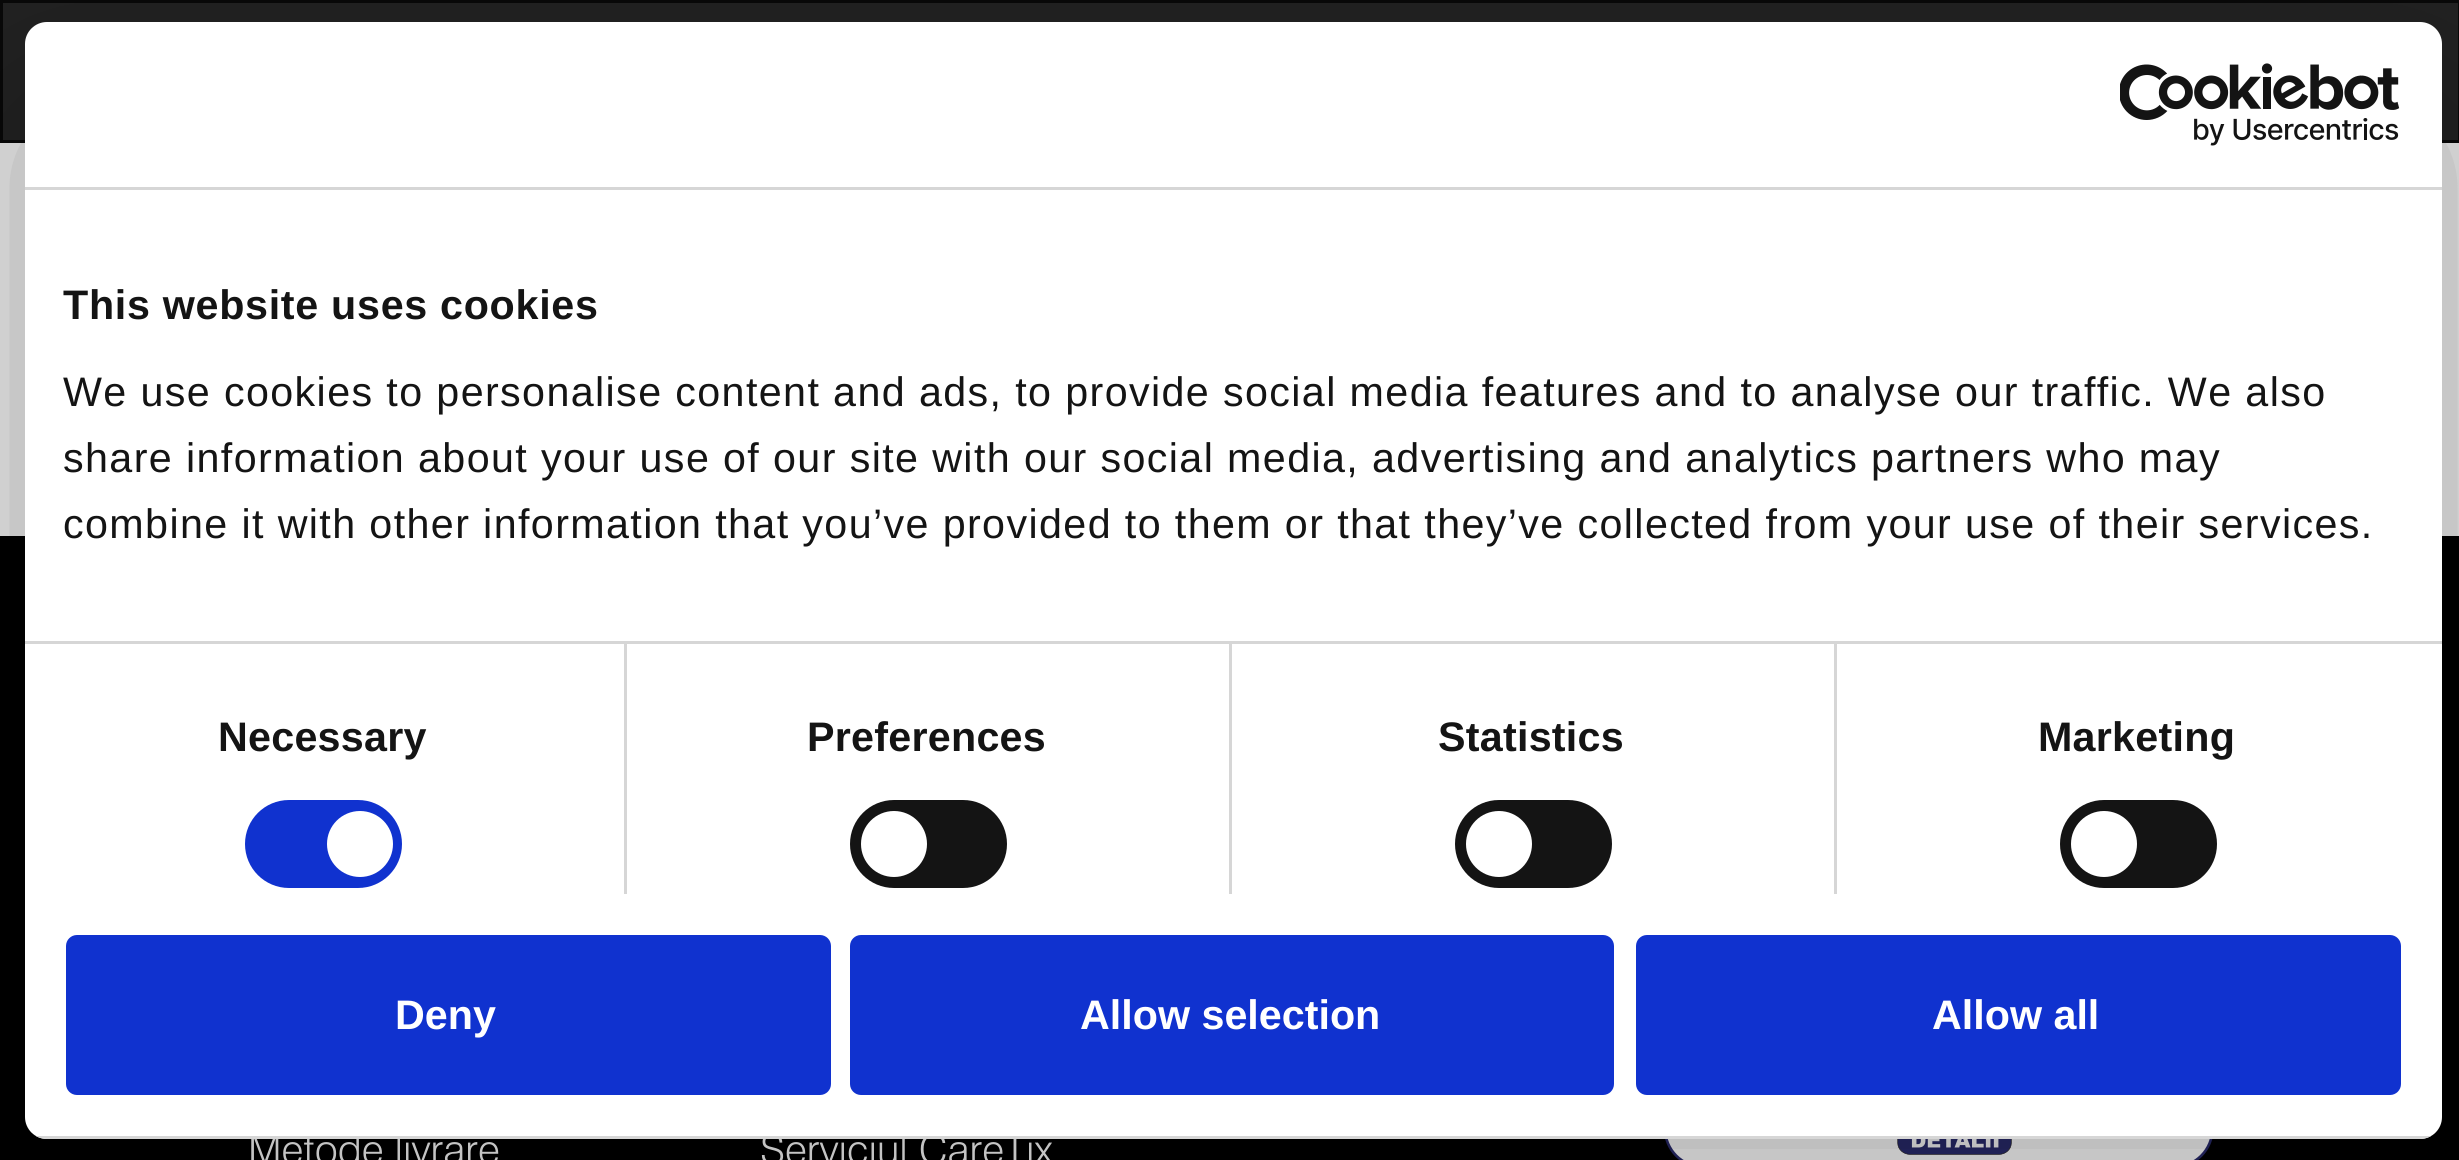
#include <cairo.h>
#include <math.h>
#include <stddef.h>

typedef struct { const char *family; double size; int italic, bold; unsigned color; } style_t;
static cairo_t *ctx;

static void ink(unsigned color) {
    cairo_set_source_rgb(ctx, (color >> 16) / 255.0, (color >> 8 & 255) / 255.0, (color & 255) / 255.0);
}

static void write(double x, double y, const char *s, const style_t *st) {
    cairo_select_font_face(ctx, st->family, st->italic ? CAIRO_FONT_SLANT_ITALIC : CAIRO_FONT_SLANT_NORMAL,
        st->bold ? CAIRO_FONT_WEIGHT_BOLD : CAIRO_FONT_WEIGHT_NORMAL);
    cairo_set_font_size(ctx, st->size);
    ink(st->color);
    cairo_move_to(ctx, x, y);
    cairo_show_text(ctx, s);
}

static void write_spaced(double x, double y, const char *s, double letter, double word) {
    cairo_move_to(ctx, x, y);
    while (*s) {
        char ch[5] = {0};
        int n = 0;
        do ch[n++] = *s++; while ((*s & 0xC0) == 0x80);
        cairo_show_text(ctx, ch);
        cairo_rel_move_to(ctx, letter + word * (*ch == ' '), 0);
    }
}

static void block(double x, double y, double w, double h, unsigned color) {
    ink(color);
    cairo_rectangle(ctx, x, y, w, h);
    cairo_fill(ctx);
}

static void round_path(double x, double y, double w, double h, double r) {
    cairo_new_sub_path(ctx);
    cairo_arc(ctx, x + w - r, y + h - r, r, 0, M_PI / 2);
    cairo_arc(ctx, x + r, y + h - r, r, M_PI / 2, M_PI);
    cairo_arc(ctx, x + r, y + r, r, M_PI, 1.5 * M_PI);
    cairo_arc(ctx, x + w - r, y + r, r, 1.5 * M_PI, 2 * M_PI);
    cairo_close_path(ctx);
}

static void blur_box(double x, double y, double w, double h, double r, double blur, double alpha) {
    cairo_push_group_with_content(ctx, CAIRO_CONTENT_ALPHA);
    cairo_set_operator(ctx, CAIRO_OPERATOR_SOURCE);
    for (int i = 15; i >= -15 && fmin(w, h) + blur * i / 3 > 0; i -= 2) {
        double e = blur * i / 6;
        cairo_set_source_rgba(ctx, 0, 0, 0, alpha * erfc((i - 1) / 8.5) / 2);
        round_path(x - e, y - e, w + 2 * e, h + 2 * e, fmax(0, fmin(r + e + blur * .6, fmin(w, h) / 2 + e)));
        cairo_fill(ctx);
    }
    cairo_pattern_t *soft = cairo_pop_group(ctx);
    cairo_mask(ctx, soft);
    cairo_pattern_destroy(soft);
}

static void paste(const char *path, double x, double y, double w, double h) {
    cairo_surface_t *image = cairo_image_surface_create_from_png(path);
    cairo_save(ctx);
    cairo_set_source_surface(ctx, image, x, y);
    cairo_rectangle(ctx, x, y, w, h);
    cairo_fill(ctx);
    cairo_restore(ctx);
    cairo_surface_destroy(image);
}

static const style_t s1 = {"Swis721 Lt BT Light", 41.25, 0, 0, 0xc4c4c4};
static const style_t s2 = {"Liberation Sans", 41.25, 0, 1, 0xffffff};

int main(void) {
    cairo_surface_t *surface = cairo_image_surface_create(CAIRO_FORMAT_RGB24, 2459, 1160);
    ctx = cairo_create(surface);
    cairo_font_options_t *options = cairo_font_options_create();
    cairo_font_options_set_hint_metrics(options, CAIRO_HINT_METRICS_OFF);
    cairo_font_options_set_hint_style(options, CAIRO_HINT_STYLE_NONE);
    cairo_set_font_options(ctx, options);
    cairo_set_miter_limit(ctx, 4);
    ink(0xeaeaea);
    cairo_paint(ctx);
    ink(0x222222);
    cairo_rectangle(ctx, 1.5, 1.5, 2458, 140);
    cairo_fill_preserve(ctx);
    ink(0x080808);
    cairo_set_line_width(ctx, 3);
    cairo_stroke(ctx);
    block(0, 536, 2459, 624, 0x000000);
    paste("pic2.png", 1665, 1139, 548, 21);
    cairo_save(ctx);
    cairo_set_fill_rule(ctx, CAIRO_FILL_RULE_EVEN_ODD);
    cairo_new_path(ctx);
    cairo_move_to(ctx, 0, 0);
    cairo_line_to(ctx, 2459, 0);
    cairo_line_to(ctx, 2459, 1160);
    cairo_line_to(ctx, 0, 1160);
    cairo_close_path(ctx);
    cairo_move_to(ctx, 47, 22);
    cairo_line_to(ctx, 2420, 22);
    cairo_curve_to(ctx, 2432, 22, 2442, 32, 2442, 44);
    cairo_line_to(ctx, 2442, 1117);
    cairo_curve_to(ctx, 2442, 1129, 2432, 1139, 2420, 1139);
    cairo_line_to(ctx, 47, 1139);
    cairo_curve_to(ctx, 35, 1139, 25, 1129, 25, 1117);
    cairo_line_to(ctx, 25, 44);
    cairo_curve_to(ctx, 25, 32, 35, 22, 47, 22);
    cairo_close_path(ctx);
    cairo_clip(ctx);
    ink(0x000000);
    blur_box(25, 110, 2417, 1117, 22, 93.5, 0.3);
    cairo_restore(ctx);
    write(248, 1164, "Metode livrare", &s1);
    write(760, 1164, "Serviciul CareTix", &s1);
    ink(0xffffff);
    round_path(25, 22, 2417, 1117, 22);
    cairo_fill(ctx);
    block(25, 187, 2417, 3, 0xd6d6d6);
    paste("pic1.png", 2120, 63, 280, 83);
    block(25, 641, 2417, 3, 0xd6d6d6);
    cairo_select_font_face(ctx, "Liberation Sans", CAIRO_FONT_SLANT_NORMAL, CAIRO_FONT_WEIGHT_BOLD);
    ink(0x141414);
    write_spaced(63, 319, "This website uses cookies", 0.7, 0);
    cairo_select_font_face(ctx, "Liberation Sans", CAIRO_FONT_SLANT_NORMAL, CAIRO_FONT_WEIGHT_NORMAL);
    write_spaced(63, 406, "We use cookies to personalise content and ads, to provide social media features and to analyse our traffic. We also", 1.38, 0);
    write_spaced(63, 472, "share information about your use of our site with our social media, advertising and analytics partners who may", 1.38, 0);
    write_spaced(63, 538, "combine it with other information that you’ve provided to them or that they’ve collected from your use of their services.", 1.38, 0);
    block(624, 644, 3, 250, 0xd6d6d6);
    cairo_select_font_face(ctx, "Liberation Sans", CAIRO_FONT_SLANT_NORMAL, CAIRO_FONT_WEIGHT_BOLD);
    ink(0x141414);
    write_spaced(218, 751, "Necessary", 0.25, 0);
    ink(0x1032cf);
    round_path(245, 800, 157, 88, 44);
    cairo_fill(ctx);
    ink(0xffffff);
    cairo_arc(ctx, 360, 844, 33, 0, 2 * M_PI);
    cairo_fill(ctx);
    block(1229, 644, 3, 250, 0xd6d6d6);
    ink(0x141414);
    write_spaced(807, 751, "Preferences", 0.25, 0);
    round_path(850, 800, 157, 88, 44);
    cairo_fill(ctx);
    ink(0xffffff);
    cairo_arc(ctx, 894, 844, 33, 0, 2 * M_PI);
    cairo_fill(ctx);
    block(1834, 644, 3, 250, 0xd6d6d6);
    ink(0x141414);
    write_spaced(1438, 751, "Statistics", 0.25, 0);
    round_path(1455, 800, 157, 88, 44);
    cairo_fill(ctx);
    ink(0xffffff);
    cairo_arc(ctx, 1499, 844, 33, 0, 2 * M_PI);
    cairo_fill(ctx);
    ink(0x141414);
    write_spaced(2038, 751, "Marketing", 0.25, 0);
    round_path(2060, 800, 157, 88, 44);
    cairo_fill(ctx);
    ink(0xffffff);
    cairo_arc(ctx, 2104, 844, 33, 0, 2 * M_PI);
    cairo_fill(ctx);
    cairo_save(ctx);
    round_path(25, 22, 2417, 1117, 22);
    cairo_clip(ctx);
    block(36, 1136, 2395, 3, 0xd6d6d6);
    cairo_restore(ctx);
    ink(0x1032cf);
    round_path(69, 938, 759, 154, 8);
    cairo_fill_preserve(ctx);
    cairo_set_line_width(ctx, 6);
    cairo_stroke(ctx);
    write(395, 1029, "Deny", &s2);
    ink(0x1032cf);
    round_path(853, 938, 758, 154, 8);
    cairo_fill_preserve(ctx);
    cairo_stroke(ctx);
    write(1080, 1029, "Allow selection", &s2);
    ink(0x1032cf);
    round_path(1639, 938, 759, 154, 8);
    cairo_fill_preserve(ctx);
    cairo_stroke(ctx);
    write(1932, 1029, "Allow all", &s2);
    cairo_surface_write_to_png(surface, "screenshot.png");
    cairo_font_options_destroy(options);
    cairo_destroy(ctx);
    cairo_surface_destroy(surface);
    return 0;
}
